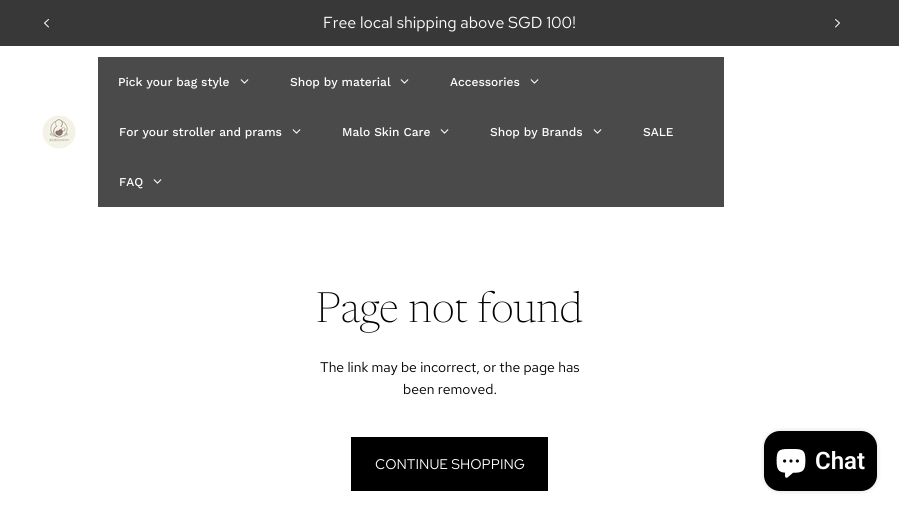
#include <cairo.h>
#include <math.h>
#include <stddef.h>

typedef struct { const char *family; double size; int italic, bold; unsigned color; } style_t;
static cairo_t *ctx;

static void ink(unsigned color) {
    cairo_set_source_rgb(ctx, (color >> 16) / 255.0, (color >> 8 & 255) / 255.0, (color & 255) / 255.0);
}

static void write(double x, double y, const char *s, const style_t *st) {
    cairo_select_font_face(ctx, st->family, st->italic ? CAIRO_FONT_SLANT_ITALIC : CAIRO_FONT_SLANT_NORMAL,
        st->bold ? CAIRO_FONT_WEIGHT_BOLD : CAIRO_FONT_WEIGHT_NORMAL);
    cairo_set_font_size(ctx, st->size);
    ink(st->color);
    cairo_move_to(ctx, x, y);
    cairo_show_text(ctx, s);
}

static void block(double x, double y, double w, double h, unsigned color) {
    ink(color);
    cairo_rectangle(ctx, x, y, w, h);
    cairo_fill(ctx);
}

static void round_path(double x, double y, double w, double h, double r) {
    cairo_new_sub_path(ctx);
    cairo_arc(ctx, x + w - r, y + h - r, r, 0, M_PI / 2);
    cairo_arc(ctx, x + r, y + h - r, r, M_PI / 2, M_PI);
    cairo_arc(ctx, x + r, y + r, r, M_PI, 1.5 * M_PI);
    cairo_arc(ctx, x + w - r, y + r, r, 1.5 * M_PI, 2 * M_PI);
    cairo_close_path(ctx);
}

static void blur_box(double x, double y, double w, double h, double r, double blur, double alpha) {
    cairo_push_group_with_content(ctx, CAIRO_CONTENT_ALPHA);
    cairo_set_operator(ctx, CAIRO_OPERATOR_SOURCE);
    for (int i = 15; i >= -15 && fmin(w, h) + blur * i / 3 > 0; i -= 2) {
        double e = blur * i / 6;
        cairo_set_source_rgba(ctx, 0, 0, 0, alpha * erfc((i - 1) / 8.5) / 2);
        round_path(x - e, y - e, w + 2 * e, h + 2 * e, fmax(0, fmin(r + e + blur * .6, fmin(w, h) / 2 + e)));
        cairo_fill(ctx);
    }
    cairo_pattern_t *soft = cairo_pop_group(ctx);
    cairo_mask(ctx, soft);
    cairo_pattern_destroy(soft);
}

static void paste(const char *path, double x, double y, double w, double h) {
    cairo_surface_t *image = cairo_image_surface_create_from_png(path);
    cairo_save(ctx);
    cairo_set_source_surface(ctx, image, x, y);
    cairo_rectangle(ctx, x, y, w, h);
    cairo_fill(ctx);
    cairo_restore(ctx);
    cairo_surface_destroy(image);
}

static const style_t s1 = {"Red Hat Text", 16, 0, 0, 0xffffff};
static const style_t s2 = {"Work Sans Medium", 12, 0, 0, 0xffffff};
static const style_t s3 = {"Newsreader ExtraLight", 43, 0, 0, 0x000000};
static const style_t s4 = {"Red Hat Text", 14, 0, 0, 0x000000};
static const style_t s5 = {"Red Hat Text", 14, 0, 0, 0xffffff};
static const style_t s6 = {"Roboto SemiBold", 24, 0, 0, 0xffffff};

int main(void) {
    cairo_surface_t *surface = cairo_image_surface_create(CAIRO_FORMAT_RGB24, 899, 512);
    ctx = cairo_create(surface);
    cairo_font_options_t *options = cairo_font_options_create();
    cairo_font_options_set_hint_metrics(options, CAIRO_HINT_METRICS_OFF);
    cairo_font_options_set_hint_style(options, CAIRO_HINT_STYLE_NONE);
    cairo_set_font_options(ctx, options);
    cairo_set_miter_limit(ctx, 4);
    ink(0xffffff);
    cairo_paint(ctx);
    block(0, 0, 899, 46, 0x383838);
    write(323, 28, "Free local shipping above SGD 100!", &s1);
    cairo_new_path(ctx);
    cairo_move_to(ctx, 48.5, 19.5);
    cairo_line_to(ctx, 44.5, 23);
    cairo_line_to(ctx, 48.5, 27);
    cairo_set_line_width(ctx, 1);
    cairo_set_line_cap(ctx, CAIRO_LINE_CAP_ROUND);
    cairo_set_line_join(ctx, CAIRO_LINE_JOIN_ROUND);
    cairo_stroke(ctx);
    cairo_new_path(ctx);
    cairo_move_to(ctx, 835.5, 19.5);
    cairo_line_to(ctx, 839.5, 23);
    cairo_line_to(ctx, 835.5, 27);
    cairo_stroke(ctx);
    paste("pic1.png", 42, 115, 34, 34);
    block(98, 57, 626, 150, 0x4a4a4a);
    write(118, 86, "Pick your bag style", &s2);
    paste("pic2.png", 240, 79, 9, 5);
    write(290, 86, "Shop by material", &s2);
    paste("pic2.png", 400, 79, 9, 5);
    write(450, 86, "Accessories", &s2);
    paste("pic2.png", 530, 79, 9, 5);
    write(119, 136, "For your stroller and prams", &s2);
    paste("pic2.png", 292, 129, 9, 5);
    write(342, 136, "Malo Skin Care", &s2);
    paste("pic2.png", 440, 129, 9, 5);
    write(490, 136, "Shop by Brands", &s2);
    paste("pic2.png", 593, 129, 9, 5);
    write(643, 136, "SALE", &s2);
    write(119, 186, "FAQ", &s2);
    paste("pic2.png", 153, 179, 9, 5);
    write(316, 322, "Page not found", &s3);
    write(320, 372, "The link may be incorrect, or the page has", &s4);
    write(403, 394, "been removed.", &s4);
    block(351, 437, 197, 54, 0x000000);
    write(375, 469, "CONTINUE SHOPPING", &s5);
    ink(0x000000);
    blur_box(764, 431, 113, 60, 16, 2.5, 0.15);
    ink(0x000000);
    round_path(764, 431, 113, 60, 16);
    cairo_fill(ctx);
    paste("pic3.png", 776, 449, 30, 29);
    write(815, 469, "Chat", &s6);
    cairo_surface_write_to_png(surface, "screenshot.png");
    cairo_font_options_destroy(options);
    cairo_destroy(ctx);
    cairo_surface_destroy(surface);
    return 0;
}
